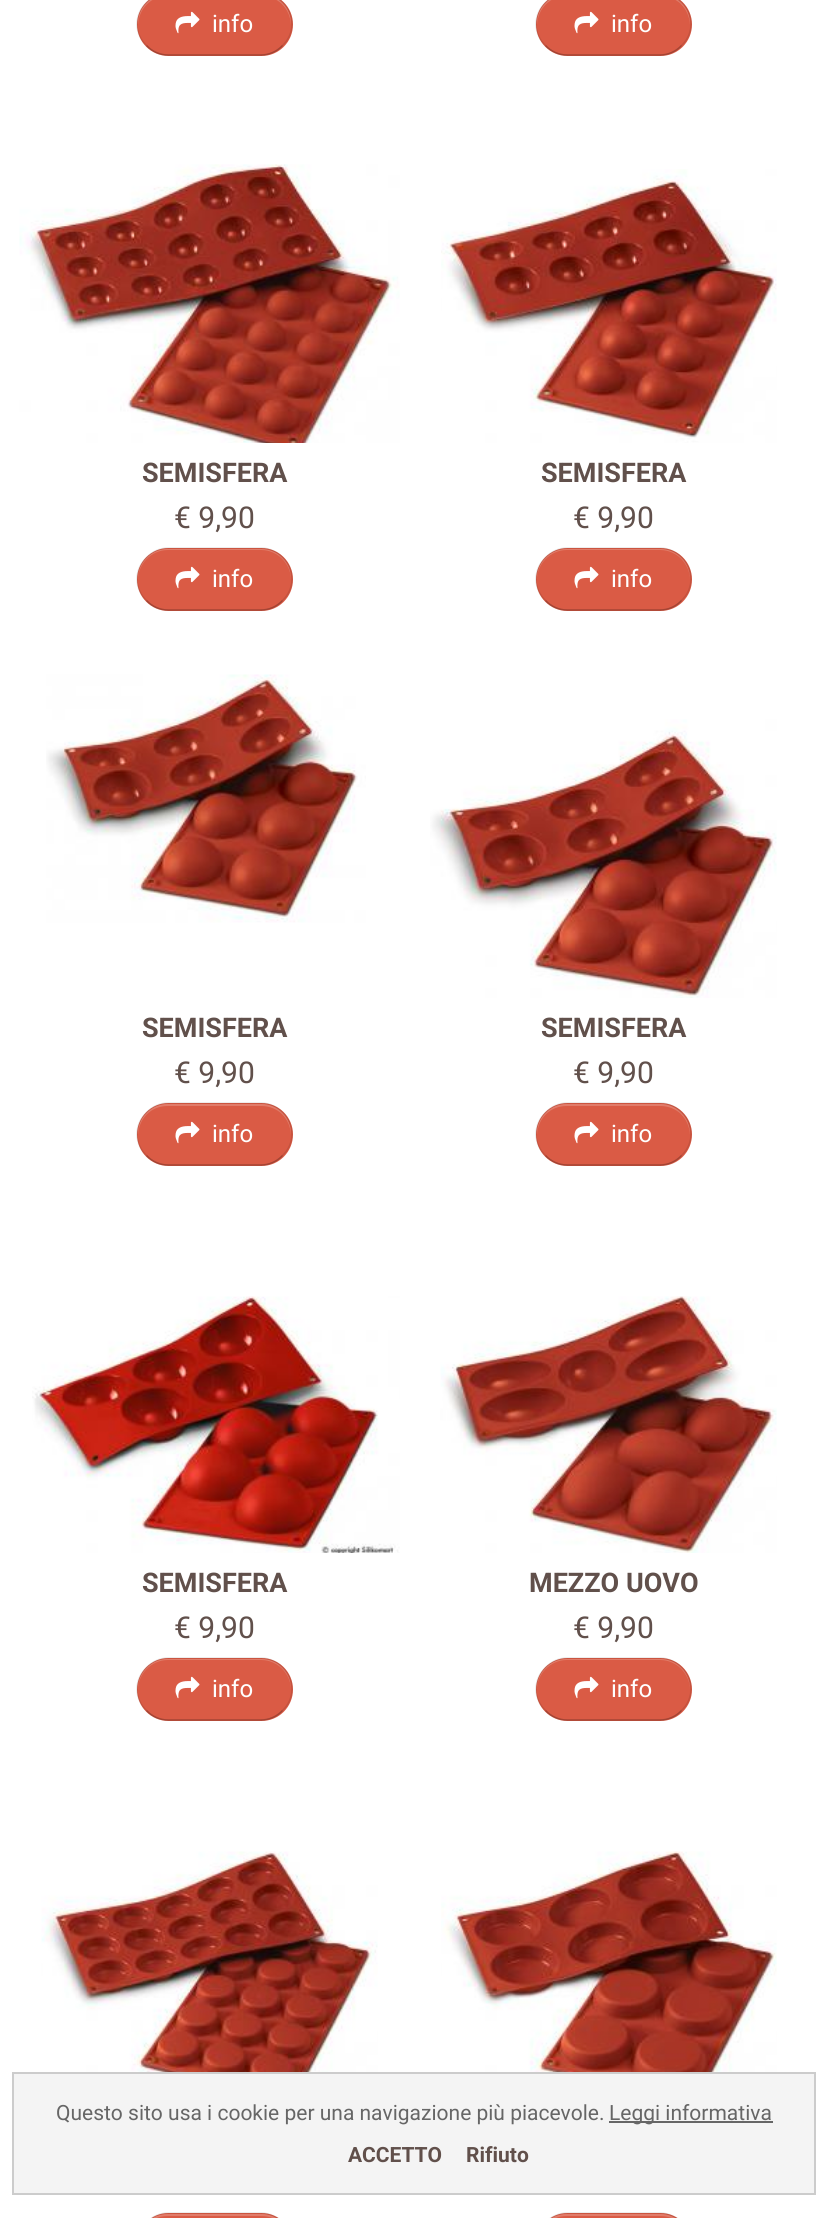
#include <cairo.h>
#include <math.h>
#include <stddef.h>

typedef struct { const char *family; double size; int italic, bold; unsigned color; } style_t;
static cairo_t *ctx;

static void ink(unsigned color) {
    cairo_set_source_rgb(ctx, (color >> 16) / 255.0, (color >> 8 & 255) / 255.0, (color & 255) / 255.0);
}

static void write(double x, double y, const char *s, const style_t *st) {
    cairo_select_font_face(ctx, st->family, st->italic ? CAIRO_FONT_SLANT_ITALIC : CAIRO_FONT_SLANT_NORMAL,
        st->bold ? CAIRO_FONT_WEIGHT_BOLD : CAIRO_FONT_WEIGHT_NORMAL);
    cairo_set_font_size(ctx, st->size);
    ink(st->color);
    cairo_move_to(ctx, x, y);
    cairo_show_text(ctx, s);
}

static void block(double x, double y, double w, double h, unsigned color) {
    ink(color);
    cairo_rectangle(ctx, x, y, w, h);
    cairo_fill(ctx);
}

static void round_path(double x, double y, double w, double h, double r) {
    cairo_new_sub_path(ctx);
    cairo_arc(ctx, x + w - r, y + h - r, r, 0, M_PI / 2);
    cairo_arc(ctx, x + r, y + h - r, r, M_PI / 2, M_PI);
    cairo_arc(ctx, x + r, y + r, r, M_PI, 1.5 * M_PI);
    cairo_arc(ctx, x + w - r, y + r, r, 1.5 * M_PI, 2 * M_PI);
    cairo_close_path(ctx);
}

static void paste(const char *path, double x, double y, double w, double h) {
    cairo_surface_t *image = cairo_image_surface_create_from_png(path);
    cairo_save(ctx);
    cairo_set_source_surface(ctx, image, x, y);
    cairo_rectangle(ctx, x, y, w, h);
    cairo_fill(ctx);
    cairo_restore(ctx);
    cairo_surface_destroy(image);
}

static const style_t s1 = {"Roboto", 24, 0, 0, 0xffffff};
static const style_t s2 = {"Roboto", 27, 0, 1, 0x61504b};
static const style_t s3 = {"Roboto", 30, 0, 0, 0x61504b};
static const style_t s4 = {"Roboto", 21, 0, 0, 0x666666};
static const style_t s5 = {"Roboto", 21, 0, 1, 0x61504b};

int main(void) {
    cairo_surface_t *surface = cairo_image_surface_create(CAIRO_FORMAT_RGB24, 827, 2218);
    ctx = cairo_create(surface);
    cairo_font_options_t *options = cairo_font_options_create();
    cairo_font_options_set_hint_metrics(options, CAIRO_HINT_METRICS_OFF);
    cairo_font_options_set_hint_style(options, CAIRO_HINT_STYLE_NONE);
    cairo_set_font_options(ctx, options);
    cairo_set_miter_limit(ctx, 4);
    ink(0xffffff);
    cairo_paint(ctx);
    ink(0xda5b45);
    round_path(137, -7, 156, 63, 31.5);
    cairo_fill(ctx);
    ink(0xe17c6a);
    cairo_new_path(ctx);
    cairo_move_to(ctx, 168, -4);
    cairo_line_to(ctx, 261, -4);
    cairo_curve_to(ctx, 278, -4, 290, 8, 291, 25);
    cairo_line_to(ctx, 291, 24);
    cairo_curve_to(ctx, 291, 7, 278, -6, 261, -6);
    cairo_line_to(ctx, 168, -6);
    cairo_curve_to(ctx, 151, -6, 138, 7, 138, 24);
    cairo_line_to(ctx, 138, 25);
    cairo_curve_to(ctx, 139, 8, 151, -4, 168, -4);
    cairo_close_path(ctx);
    cairo_fill(ctx);
    cairo_new_path(ctx);
    cairo_move_to(ctx, 282.5, 45.5);
    cairo_curve_to(ctx, 277, 51.5, 269, 55, 261, 55);
    cairo_line_to(ctx, 168, 55);
    cairo_curve_to(ctx, 160, 55, 152, 51.5, 146.5, 45.5);
    cairo_set_source_rgba(ctx, 0, 0, 0, 0.25);
    cairo_set_line_width(ctx, 1.5);
    cairo_stroke(ctx);
    cairo_new_path(ctx);
    cairo_move_to(ctx, 146.5, 45.5);
    cairo_curve_to(ctx, 140.5, 40, 137, 32, 137, 24);
    cairo_curve_to(ctx, 137, 16, 140.5, 8, 146.5, 2.5);
    cairo_curve_to(ctx, 152, -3.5, 160, -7, 168, -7);
    cairo_line_to(ctx, 261, -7);
    cairo_curve_to(ctx, 269, -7, 277, -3.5, 282.5, 2.5);
    cairo_curve_to(ctx, 288.5, 8, 292, 16, 292, 24);
    cairo_curve_to(ctx, 292, 32, 288.5, 40, 282.5, 45.5);
    cairo_set_source_rgba(ctx, 0, 0, 0, 0.1);
    cairo_stroke(ctx);
    paste("pic1.png", 175, 11, 25, 23);
    write(212, 32, "info", &s1);
    ink(0xda5b45);
    round_path(536, -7, 156, 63, 31.5);
    cairo_fill(ctx);
    ink(0xe17c6a);
    cairo_new_path(ctx);
    cairo_move_to(ctx, 567, -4);
    cairo_line_to(ctx, 660, -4);
    cairo_curve_to(ctx, 677, -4, 689, 8, 690, 25);
    cairo_line_to(ctx, 690, 24);
    cairo_curve_to(ctx, 690, 7, 677, -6, 660, -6);
    cairo_line_to(ctx, 567, -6);
    cairo_curve_to(ctx, 550, -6, 537, 7, 537, 24);
    cairo_line_to(ctx, 537, 25);
    cairo_curve_to(ctx, 538, 8, 550, -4, 567, -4);
    cairo_close_path(ctx);
    cairo_fill(ctx);
    cairo_new_path(ctx);
    cairo_move_to(ctx, 681.5, 45.5);
    cairo_curve_to(ctx, 676, 51.5, 668, 55, 660, 55);
    cairo_line_to(ctx, 567, 55);
    cairo_curve_to(ctx, 559, 55, 551, 51.5, 545.5, 45.5);
    cairo_set_source_rgba(ctx, 0, 0, 0, 0.25);
    cairo_stroke(ctx);
    cairo_new_path(ctx);
    cairo_move_to(ctx, 545.5, 45.5);
    cairo_curve_to(ctx, 539.5, 40, 536, 32, 536, 24);
    cairo_curve_to(ctx, 536, 16, 539.5, 8, 545.5, 2.5);
    cairo_curve_to(ctx, 551, -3.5, 559, -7, 567, -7);
    cairo_line_to(ctx, 660, -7);
    cairo_curve_to(ctx, 668, -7, 676, -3.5, 681.5, 2.5);
    cairo_curve_to(ctx, 687.5, 8, 691, 16, 691, 24);
    cairo_curve_to(ctx, 691, 32, 687.5, 40, 681.5, 45.5);
    cairo_set_source_rgba(ctx, 0, 0, 0, 0.1);
    cairo_stroke(ctx);
    paste("pic1.png", 574, 11, 25, 23);
    write(611, 32, "info", &s1);
    paste("pic2.png", 19, 164, 381, 279);
    write(142, 482, "SEMISFERA", &s2);
    write(174, 528, "€ 9,90", &s3);
    ink(0xda5b45);
    round_path(137, 548, 156, 63, 31.5);
    cairo_fill(ctx);
    ink(0xe17c6a);
    cairo_new_path(ctx);
    cairo_move_to(ctx, 168, 550);
    cairo_line_to(ctx, 261, 550);
    cairo_curve_to(ctx, 278, 550, 291, 564, 291, 580);
    cairo_line_to(ctx, 291, 579);
    cairo_curve_to(ctx, 291, 562, 278, 549, 261, 549);
    cairo_line_to(ctx, 168, 549);
    cairo_curve_to(ctx, 151, 549, 138, 562, 138, 579);
    cairo_line_to(ctx, 138, 580);
    cairo_curve_to(ctx, 138, 564, 151, 550, 168, 550);
    cairo_close_path(ctx);
    cairo_fill(ctx);
    cairo_new_path(ctx);
    cairo_move_to(ctx, 282.5, 600.5);
    cairo_curve_to(ctx, 277, 606.5, 269, 610, 261, 610);
    cairo_line_to(ctx, 168, 610);
    cairo_curve_to(ctx, 160, 610, 152, 606.5, 146.5, 600.5);
    cairo_set_source_rgba(ctx, 0, 0, 0, 0.25);
    cairo_stroke(ctx);
    cairo_new_path(ctx);
    cairo_move_to(ctx, 146.5, 600.5);
    cairo_curve_to(ctx, 140.5, 595, 137, 587, 137, 579);
    cairo_curve_to(ctx, 137, 571, 140.5, 563, 146.5, 557.5);
    cairo_curve_to(ctx, 152, 551.5, 160, 548, 168, 548);
    cairo_line_to(ctx, 261, 548);
    cairo_curve_to(ctx, 269, 548, 277, 551.5, 282.5, 557.5);
    cairo_curve_to(ctx, 288.5, 563, 292, 571, 292, 579);
    cairo_curve_to(ctx, 292, 587, 288.5, 595, 282.5, 600.5);
    cairo_set_source_rgba(ctx, 0, 0, 0, 0.1);
    cairo_stroke(ctx);
    paste("pic1.png", 175, 566, 25, 23);
    write(212, 587, "info", &s1);
    paste("pic3.png", 441, 169, 336, 274);
    write(541, 482, "SEMISFERA", &s2);
    write(573, 528, "€ 9,90", &s3);
    ink(0xda5b45);
    round_path(536, 548, 156, 63, 31.5);
    cairo_fill(ctx);
    ink(0xe17c6a);
    cairo_new_path(ctx);
    cairo_move_to(ctx, 567, 550);
    cairo_line_to(ctx, 660, 550);
    cairo_curve_to(ctx, 677, 550, 690, 564, 690, 580);
    cairo_line_to(ctx, 690, 579);
    cairo_curve_to(ctx, 690, 562, 677, 549, 660, 549);
    cairo_line_to(ctx, 567, 549);
    cairo_curve_to(ctx, 550, 549, 537, 562, 537, 579);
    cairo_line_to(ctx, 537, 580);
    cairo_curve_to(ctx, 537, 564, 550, 550, 567, 550);
    cairo_close_path(ctx);
    cairo_fill(ctx);
    cairo_new_path(ctx);
    cairo_move_to(ctx, 681.5, 600.5);
    cairo_curve_to(ctx, 676, 606.5, 668, 610, 660, 610);
    cairo_line_to(ctx, 567, 610);
    cairo_curve_to(ctx, 559, 610, 551, 606.5, 545.5, 600.5);
    cairo_set_source_rgba(ctx, 0, 0, 0, 0.25);
    cairo_stroke(ctx);
    cairo_new_path(ctx);
    cairo_move_to(ctx, 545.5, 600.5);
    cairo_curve_to(ctx, 539.5, 595, 536, 587, 536, 579);
    cairo_curve_to(ctx, 536, 571, 539.5, 563, 545.5, 557.5);
    cairo_curve_to(ctx, 551, 551.5, 559, 548, 567, 548);
    cairo_line_to(ctx, 660, 548);
    cairo_curve_to(ctx, 668, 548, 676, 551.5, 681.5, 557.5);
    cairo_curve_to(ctx, 687.5, 563, 691, 571, 691, 579);
    cairo_curve_to(ctx, 691, 587, 687.5, 595, 681.5, 600.5);
    cairo_set_source_rgba(ctx, 0, 0, 0, 0.1);
    cairo_stroke(ctx);
    paste("pic1.png", 574, 566, 25, 23);
    write(611, 587, "info", &s1);
    paste("pic4.png", 46, 674, 320, 249);
    write(142, 1037, "SEMISFERA", &s2);
    write(174, 1083, "€ 9,90", &s3);
    ink(0xda5b45);
    round_path(137, 1103, 156, 63, 31.5);
    cairo_fill(ctx);
    ink(0xe17c6a);
    cairo_new_path(ctx);
    cairo_move_to(ctx, 168, 1106);
    cairo_line_to(ctx, 261, 1106);
    cairo_curve_to(ctx, 278, 1106, 290, 1118, 291, 1135);
    cairo_line_to(ctx, 291, 1134);
    cairo_curve_to(ctx, 291, 1117, 278, 1104, 261, 1104);
    cairo_line_to(ctx, 168, 1104);
    cairo_curve_to(ctx, 151, 1104, 138, 1117, 138, 1134);
    cairo_line_to(ctx, 138, 1135);
    cairo_curve_to(ctx, 139, 1118, 151, 1106, 168, 1106);
    cairo_close_path(ctx);
    cairo_fill(ctx);
    cairo_new_path(ctx);
    cairo_move_to(ctx, 282.5, 1155.5);
    cairo_curve_to(ctx, 277, 1161.5, 269, 1165, 261, 1165);
    cairo_line_to(ctx, 168, 1165);
    cairo_curve_to(ctx, 160, 1165, 152, 1161.5, 146.5, 1155.5);
    cairo_set_source_rgba(ctx, 0, 0, 0, 0.25);
    cairo_stroke(ctx);
    cairo_new_path(ctx);
    cairo_move_to(ctx, 146.5, 1155.5);
    cairo_curve_to(ctx, 140.5, 1150, 137, 1142, 137, 1134);
    cairo_curve_to(ctx, 137, 1126, 140.5, 1118, 146.5, 1112.5);
    cairo_curve_to(ctx, 152, 1106.5, 160, 1103, 168, 1103);
    cairo_line_to(ctx, 261, 1103);
    cairo_curve_to(ctx, 269, 1103, 277, 1106.5, 282.5, 1112.5);
    cairo_curve_to(ctx, 288.5, 1118, 292, 1126, 292, 1134);
    cairo_curve_to(ctx, 292, 1142, 288.5, 1150, 282.5, 1155.5);
    cairo_set_source_rgba(ctx, 0, 0, 0, 0.1);
    cairo_stroke(ctx);
    paste("pic1.png", 175, 1121, 25, 23);
    write(212, 1142, "info", &s1);
    paste("pic5.png", 430, 719, 347, 279);
    write(541, 1037, "SEMISFERA", &s2);
    write(573, 1083, "€ 9,90", &s3);
    ink(0xda5b45);
    round_path(536, 1103, 156, 63, 31.5);
    cairo_fill(ctx);
    ink(0xe17c6a);
    cairo_new_path(ctx);
    cairo_move_to(ctx, 567, 1106);
    cairo_line_to(ctx, 660, 1106);
    cairo_curve_to(ctx, 677, 1106, 689, 1118, 690, 1135);
    cairo_line_to(ctx, 690, 1134);
    cairo_curve_to(ctx, 690, 1117, 677, 1104, 660, 1104);
    cairo_line_to(ctx, 567, 1104);
    cairo_curve_to(ctx, 550, 1104, 537, 1117, 537, 1134);
    cairo_line_to(ctx, 537, 1135);
    cairo_curve_to(ctx, 538, 1118, 550, 1106, 567, 1106);
    cairo_close_path(ctx);
    cairo_fill(ctx);
    cairo_new_path(ctx);
    cairo_move_to(ctx, 681.5, 1155.5);
    cairo_curve_to(ctx, 676, 1161.5, 668, 1165, 660, 1165);
    cairo_line_to(ctx, 567, 1165);
    cairo_curve_to(ctx, 559, 1165, 551, 1161.5, 545.5, 1155.5);
    cairo_set_source_rgba(ctx, 0, 0, 0, 0.25);
    cairo_stroke(ctx);
    cairo_new_path(ctx);
    cairo_move_to(ctx, 545.5, 1155.5);
    cairo_curve_to(ctx, 539.5, 1150, 536, 1142, 536, 1134);
    cairo_curve_to(ctx, 536, 1126, 539.5, 1118, 545.5, 1112.5);
    cairo_curve_to(ctx, 551, 1106.5, 559, 1103, 567, 1103);
    cairo_line_to(ctx, 660, 1103);
    cairo_curve_to(ctx, 668, 1103, 676, 1106.5, 681.5, 1112.5);
    cairo_curve_to(ctx, 687.5, 1118, 691, 1126, 691, 1134);
    cairo_curve_to(ctx, 691, 1142, 687.5, 1150, 681.5, 1155.5);
    cairo_set_source_rgba(ctx, 0, 0, 0, 0.1);
    cairo_stroke(ctx);
    paste("pic1.png", 574, 1121, 25, 23);
    write(611, 1142, "info", &s1);
    paste("pic6.png", 32, 1296, 368, 257);
    write(142, 1592, "SEMISFERA", &s2);
    write(174, 1638, "€ 9,90", &s3);
    ink(0xda5b45);
    round_path(137, 1658, 156, 63, 31.5);
    cairo_fill(ctx);
    ink(0xe17c6a);
    cairo_new_path(ctx);
    cairo_move_to(ctx, 168, 1660);
    cairo_line_to(ctx, 261, 1660);
    cairo_curve_to(ctx, 278, 1660, 291, 1674, 291, 1690);
    cairo_line_to(ctx, 291, 1689);
    cairo_curve_to(ctx, 291, 1672, 278, 1659, 261, 1659);
    cairo_line_to(ctx, 168, 1659);
    cairo_curve_to(ctx, 151, 1659, 138, 1672, 138, 1689);
    cairo_line_to(ctx, 138, 1690);
    cairo_curve_to(ctx, 138, 1674, 151, 1660, 168, 1660);
    cairo_close_path(ctx);
    cairo_fill(ctx);
    cairo_new_path(ctx);
    cairo_move_to(ctx, 282.5, 1710.5);
    cairo_curve_to(ctx, 277, 1716.5, 269, 1720, 261, 1720);
    cairo_line_to(ctx, 168, 1720);
    cairo_curve_to(ctx, 160, 1720, 152, 1716.5, 146.5, 1710.5);
    cairo_set_source_rgba(ctx, 0, 0, 0, 0.25);
    cairo_stroke(ctx);
    cairo_new_path(ctx);
    cairo_move_to(ctx, 146.5, 1710.5);
    cairo_curve_to(ctx, 140.5, 1705, 137, 1697, 137, 1689);
    cairo_curve_to(ctx, 137, 1681, 140.5, 1673, 146.5, 1667.5);
    cairo_curve_to(ctx, 152, 1661.5, 160, 1658, 168, 1658);
    cairo_line_to(ctx, 261, 1658);
    cairo_curve_to(ctx, 269, 1658, 277, 1661.5, 282.5, 1667.5);
    cairo_curve_to(ctx, 288.5, 1673, 292, 1681, 292, 1689);
    cairo_curve_to(ctx, 292, 1697, 288.5, 1705, 282.5, 1710.5);
    cairo_set_source_rgba(ctx, 0, 0, 0, 0.1);
    cairo_stroke(ctx);
    paste("pic1.png", 175, 1676, 25, 23);
    write(212, 1697, "info", &s1);
    paste("pic7.png", 440, 1296, 337, 257);
    write(529, 1592, "MEZZO UOVO", &s2);
    write(573, 1638, "€ 9,90", &s3);
    ink(0xda5b45);
    round_path(536, 1658, 156, 63, 31.5);
    cairo_fill(ctx);
    ink(0xe17c6a);
    cairo_new_path(ctx);
    cairo_move_to(ctx, 567, 1660);
    cairo_line_to(ctx, 660, 1660);
    cairo_curve_to(ctx, 677, 1660, 690, 1674, 690, 1690);
    cairo_line_to(ctx, 690, 1689);
    cairo_curve_to(ctx, 690, 1672, 677, 1659, 660, 1659);
    cairo_line_to(ctx, 567, 1659);
    cairo_curve_to(ctx, 550, 1659, 537, 1672, 537, 1689);
    cairo_line_to(ctx, 537, 1690);
    cairo_curve_to(ctx, 537, 1674, 550, 1660, 567, 1660);
    cairo_close_path(ctx);
    cairo_fill(ctx);
    cairo_new_path(ctx);
    cairo_move_to(ctx, 681.5, 1710.5);
    cairo_curve_to(ctx, 676, 1716.5, 668, 1720, 660, 1720);
    cairo_line_to(ctx, 567, 1720);
    cairo_curve_to(ctx, 559, 1720, 551, 1716.5, 545.5, 1710.5);
    cairo_set_source_rgba(ctx, 0, 0, 0, 0.25);
    cairo_stroke(ctx);
    cairo_new_path(ctx);
    cairo_move_to(ctx, 545.5, 1710.5);
    cairo_curve_to(ctx, 539.5, 1705, 536, 1697, 536, 1689);
    cairo_curve_to(ctx, 536, 1681, 539.5, 1673, 545.5, 1667.5);
    cairo_curve_to(ctx, 551, 1661.5, 559, 1658, 567, 1658);
    cairo_line_to(ctx, 660, 1658);
    cairo_curve_to(ctx, 668, 1658, 676, 1661.5, 681.5, 1667.5);
    cairo_curve_to(ctx, 687.5, 1673, 691, 1681, 691, 1689);
    cairo_curve_to(ctx, 691, 1697, 687.5, 1705, 681.5, 1710.5);
    cairo_set_source_rgba(ctx, 0, 0, 0, 0.1);
    cairo_stroke(ctx);
    paste("pic1.png", 574, 1676, 25, 23);
    write(611, 1697, "info", &s1);
    paste("pic8.png", 41, 1851, 337, 221);
    ink(0xda5b45);
    round_path(137, 2213, 156, 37, 31.5);
    cairo_fill(ctx);
    ink(0xe17c6a);
    cairo_new_path(ctx);
    cairo_move_to(ctx, 168, 2216);
    cairo_line_to(ctx, 261, 2216);
    cairo_curve_to(ctx, 278, 2216, 290, 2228, 291, 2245);
    cairo_line_to(ctx, 291, 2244);
    cairo_curve_to(ctx, 291, 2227, 278, 2214, 261, 2214);
    cairo_line_to(ctx, 168, 2214);
    cairo_curve_to(ctx, 151, 2214, 138, 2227, 138, 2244);
    cairo_line_to(ctx, 138, 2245);
    cairo_curve_to(ctx, 139, 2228, 151, 2216, 168, 2216);
    cairo_close_path(ctx);
    cairo_fill(ctx);
    cairo_new_path(ctx);
    cairo_move_to(ctx, 146.5, 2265.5);
    cairo_curve_to(ctx, 140.5, 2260, 137, 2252, 137, 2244);
    cairo_curve_to(ctx, 137, 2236, 140.5, 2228, 146.5, 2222.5);
    cairo_curve_to(ctx, 152, 2216.5, 160, 2213, 168, 2213);
    cairo_line_to(ctx, 261, 2213);
    cairo_curve_to(ctx, 269, 2213, 277, 2216.5, 282.5, 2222.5);
    cairo_curve_to(ctx, 288.5, 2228, 292, 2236, 292, 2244);
    cairo_curve_to(ctx, 292, 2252, 288.5, 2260, 282.5, 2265.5);
    cairo_set_source_rgba(ctx, 0, 0, 0, 0.1);
    cairo_stroke(ctx);
    paste("pic9.png", 441, 1851, 336, 221);
    ink(0xda5b45);
    round_path(536, 2213, 156, 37, 31.5);
    cairo_fill(ctx);
    ink(0xe17c6a);
    cairo_new_path(ctx);
    cairo_move_to(ctx, 567, 2216);
    cairo_line_to(ctx, 660, 2216);
    cairo_curve_to(ctx, 677, 2216, 689, 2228, 690, 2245);
    cairo_line_to(ctx, 690, 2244);
    cairo_curve_to(ctx, 690, 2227, 677, 2214, 660, 2214);
    cairo_line_to(ctx, 567, 2214);
    cairo_curve_to(ctx, 550, 2214, 537, 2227, 537, 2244);
    cairo_line_to(ctx, 537, 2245);
    cairo_curve_to(ctx, 538, 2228, 550, 2216, 567, 2216);
    cairo_close_path(ctx);
    cairo_fill(ctx);
    cairo_new_path(ctx);
    cairo_move_to(ctx, 545.5, 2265.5);
    cairo_curve_to(ctx, 539.5, 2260, 536, 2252, 536, 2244);
    cairo_curve_to(ctx, 536, 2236, 539.5, 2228, 545.5, 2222.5);
    cairo_curve_to(ctx, 551, 2216.5, 559, 2213, 567, 2213);
    cairo_line_to(ctx, 660, 2213);
    cairo_curve_to(ctx, 668, 2213, 676, 2216.5, 681.5, 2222.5);
    cairo_curve_to(ctx, 687.5, 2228, 691, 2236, 691, 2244);
    cairo_curve_to(ctx, 691, 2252, 687.5, 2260, 681.5, 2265.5);
    cairo_set_source_rgba(ctx, 0, 0, 0, 0.1);
    cairo_stroke(ctx);
    ink(0xf4f4f4);
    cairo_rectangle(ctx, 13, 2073, 802, 121);
    cairo_fill_preserve(ctx);
    ink(0xcccccc);
    cairo_set_line_width(ctx, 2);
    cairo_stroke(ctx);
    write(56, 2120, "Questo sito usa i cookie per una navigazione più piacevole.", &s4);
    block(609, 2121, 164, 2, 0x666666);
    write(609, 2120, "Leggi informativa", &s4);
    write(348, 2162, "ACCETTO", &s5);
    write(466, 2162, "Rifiuto", &s5);
    cairo_surface_write_to_png(surface, "screenshot.png");
    cairo_font_options_destroy(options);
    cairo_destroy(ctx);
    cairo_surface_destroy(surface);
    return 0;
}
